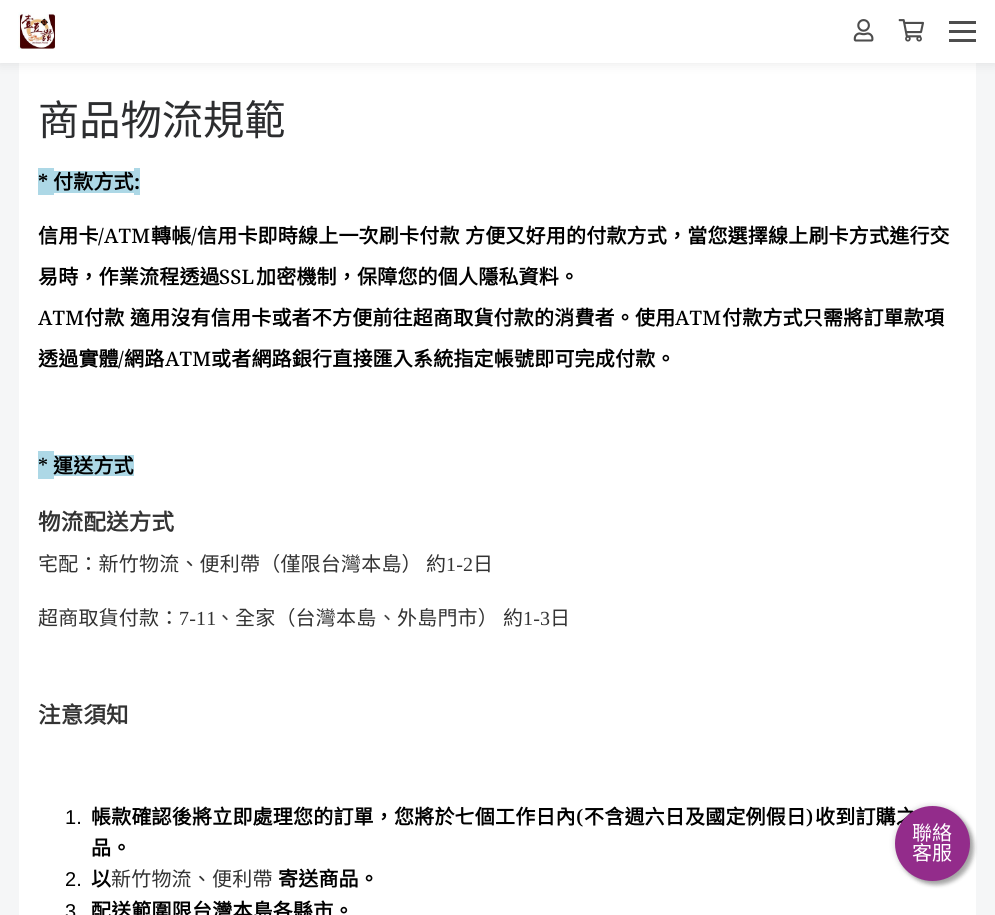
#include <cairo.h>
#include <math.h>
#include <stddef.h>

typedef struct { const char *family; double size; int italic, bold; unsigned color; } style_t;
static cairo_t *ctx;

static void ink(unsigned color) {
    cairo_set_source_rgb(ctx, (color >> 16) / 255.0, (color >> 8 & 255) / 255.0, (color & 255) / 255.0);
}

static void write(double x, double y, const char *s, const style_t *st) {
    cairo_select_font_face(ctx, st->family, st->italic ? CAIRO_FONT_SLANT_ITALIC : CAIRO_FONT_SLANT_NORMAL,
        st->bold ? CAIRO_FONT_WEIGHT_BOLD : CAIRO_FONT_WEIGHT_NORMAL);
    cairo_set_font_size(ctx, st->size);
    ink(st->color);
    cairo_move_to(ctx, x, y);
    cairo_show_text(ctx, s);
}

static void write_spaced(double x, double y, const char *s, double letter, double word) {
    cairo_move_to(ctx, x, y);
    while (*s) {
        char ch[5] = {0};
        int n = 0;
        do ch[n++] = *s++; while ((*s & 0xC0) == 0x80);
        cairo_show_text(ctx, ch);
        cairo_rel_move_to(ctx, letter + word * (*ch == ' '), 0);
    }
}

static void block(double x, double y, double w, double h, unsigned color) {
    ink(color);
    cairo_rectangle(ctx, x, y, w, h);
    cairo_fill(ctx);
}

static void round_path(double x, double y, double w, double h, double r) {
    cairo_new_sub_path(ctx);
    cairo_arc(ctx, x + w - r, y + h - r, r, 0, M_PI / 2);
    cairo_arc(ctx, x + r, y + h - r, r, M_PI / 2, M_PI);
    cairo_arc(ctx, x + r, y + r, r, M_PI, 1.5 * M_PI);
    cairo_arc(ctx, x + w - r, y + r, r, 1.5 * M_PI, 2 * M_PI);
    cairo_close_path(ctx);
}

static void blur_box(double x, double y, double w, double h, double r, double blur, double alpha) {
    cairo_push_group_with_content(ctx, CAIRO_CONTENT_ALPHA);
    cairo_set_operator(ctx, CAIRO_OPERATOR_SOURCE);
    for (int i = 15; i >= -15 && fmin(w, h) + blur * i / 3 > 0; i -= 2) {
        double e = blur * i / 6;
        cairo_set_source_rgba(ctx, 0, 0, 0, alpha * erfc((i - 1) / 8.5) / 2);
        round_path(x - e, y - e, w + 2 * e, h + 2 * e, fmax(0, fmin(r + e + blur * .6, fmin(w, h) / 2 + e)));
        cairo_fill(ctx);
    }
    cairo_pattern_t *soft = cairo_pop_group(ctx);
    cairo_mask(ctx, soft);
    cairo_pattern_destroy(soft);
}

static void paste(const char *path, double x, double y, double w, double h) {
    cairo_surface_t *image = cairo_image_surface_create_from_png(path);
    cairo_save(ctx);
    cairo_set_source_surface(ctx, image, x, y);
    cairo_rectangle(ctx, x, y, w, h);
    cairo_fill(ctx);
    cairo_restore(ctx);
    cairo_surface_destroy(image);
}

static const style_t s1 = {"Noto Sans CJK TC", 41.25, 0, 0, 0x2c2d2f};
static const style_t s2 = {"Noto Sans CJK TC", 20, 0, 0, 0xffffff};

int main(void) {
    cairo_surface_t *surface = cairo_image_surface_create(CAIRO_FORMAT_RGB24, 995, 915);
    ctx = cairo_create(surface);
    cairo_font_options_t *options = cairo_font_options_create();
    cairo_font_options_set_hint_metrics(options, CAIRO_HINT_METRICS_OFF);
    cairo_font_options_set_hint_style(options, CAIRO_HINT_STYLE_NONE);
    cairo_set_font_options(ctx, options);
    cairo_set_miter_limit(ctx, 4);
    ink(0xf5f6f7);
    cairo_paint(ctx);
    block(19, 63, 957, 852, 0xffffff);
    ink(0x000000);
    blur_box(0, 0, 995, 63, 0, 6, 0.1);
    block(0, 0, 995, 63, 0xffffff);
    paste("pic1.png", 18, 12, 38, 37);
    paste("pic2.png", 853, 19, 21, 23);
    paste("pic3.png", 898, 19, 26, 23);
    block(949, 21, 27, 3, 0x4d4d4d);
    block(949, 30, 27, 3, 0x4d4d4d);
    block(949, 39, 27, 3, 0x4d4d4d);
    write(38, 135, "商品物流規範", &s1);
    block(38, 168, 16, 27, 0xadd8e6);
    cairo_select_font_face(ctx, "Noto Serif", CAIRO_FONT_SLANT_NORMAL, CAIRO_FONT_WEIGHT_BOLD);
    cairo_set_font_size(ctx, 20);
    ink(0x000000);
    write_spaced(38, 189, "*", 0.2, 0);
    block(54, 171, 80, 22, 0xadd8e6);
    cairo_select_font_face(ctx, "Noto Sans CJK TC", CAIRO_FONT_SLANT_NORMAL, CAIRO_FONT_WEIGHT_BOLD);
    ink(0x000000);
    write_spaced(53, 189, "付款方式", 0.2, 0);
    block(134, 168, 6, 27, 0xadd8e6);
    cairo_select_font_face(ctx, "Noto Serif", CAIRO_FONT_SLANT_NORMAL, CAIRO_FONT_WEIGHT_BOLD);
    ink(0x000000);
    write_spaced(134, 189, ":", 0.2, 0);
    cairo_select_font_face(ctx, "Noto Sans CJK TC", CAIRO_FONT_SLANT_NORMAL, CAIRO_FONT_WEIGHT_BOLD);
    write_spaced(38, 243, "信用卡", 0.2, 0);
    cairo_select_font_face(ctx, "Noto Serif Medium", CAIRO_FONT_SLANT_NORMAL, CAIRO_FONT_WEIGHT_NORMAL);
    write_spaced(98, 243, "/ATM", 0.2, 0);
    cairo_select_font_face(ctx, "Noto Sans CJK TC", CAIRO_FONT_SLANT_NORMAL, CAIRO_FONT_WEIGHT_BOLD);
    write_spaced(151, 243, "轉帳", 0.2, 0);
    cairo_select_font_face(ctx, "Noto Serif Medium", CAIRO_FONT_SLANT_NORMAL, CAIRO_FONT_WEIGHT_NORMAL);
    write_spaced(191, 243, "/", 0.2, 0);
    cairo_select_font_face(ctx, "Noto Sans CJK TC", CAIRO_FONT_SLANT_NORMAL, CAIRO_FONT_WEIGHT_BOLD);
    write_spaced(197, 243, "信用卡即時線上一次刷卡付款", 0.2, 0);
    write_spaced(465, 243, "方便又好用的付款方式，當您選擇線上刷卡方式進行交", 0.2, 0);
    write_spaced(38, 284, "易時，作業流程透過", 0.2, 0);
    cairo_select_font_face(ctx, "Noto Serif Medium", CAIRO_FONT_SLANT_NORMAL, CAIRO_FONT_WEIGHT_NORMAL);
    write_spaced(219, 284, "SSL", 0.2, 0);
    cairo_select_font_face(ctx, "Noto Sans CJK TC", CAIRO_FONT_SLANT_NORMAL, CAIRO_FONT_WEIGHT_BOLD);
    write_spaced(256, 284, "加密機制，保障您的個人隱私資料。", 0.2, 0);
    cairo_select_font_face(ctx, "Noto Serif Medium", CAIRO_FONT_SLANT_NORMAL, CAIRO_FONT_WEIGHT_NORMAL);
    write_spaced(38, 325, "ATM", 0.2, 0);
    cairo_select_font_face(ctx, "Noto Sans CJK TC", CAIRO_FONT_SLANT_NORMAL, CAIRO_FONT_WEIGHT_BOLD);
    write_spaced(84, 325, "付款", 0.2, 0);
    write_spaced(130, 325, "適用沒有信用卡或者不方便前往超商取貨付款的消費者。使用", 0.2, 0);
    cairo_select_font_face(ctx, "Noto Serif Medium", CAIRO_FONT_SLANT_NORMAL, CAIRO_FONT_WEIGHT_NORMAL);
    write_spaced(675, 325, "ATM", 0.2, 0);
    cairo_select_font_face(ctx, "Noto Sans CJK TC", CAIRO_FONT_SLANT_NORMAL, CAIRO_FONT_WEIGHT_BOLD);
    write_spaced(722, 325, "付款方式只需將訂單款項", 0.2, 0);
    write_spaced(38, 366, "透過實體", 0.2, 0);
    cairo_select_font_face(ctx, "Noto Serif Medium", CAIRO_FONT_SLANT_NORMAL, CAIRO_FONT_WEIGHT_NORMAL);
    write_spaced(118, 366, "/", 0.2, 0);
    cairo_select_font_face(ctx, "Noto Sans CJK TC", CAIRO_FONT_SLANT_NORMAL, CAIRO_FONT_WEIGHT_BOLD);
    write_spaced(124, 366, "網路", 0.2, 0);
    cairo_select_font_face(ctx, "Noto Serif Medium", CAIRO_FONT_SLANT_NORMAL, CAIRO_FONT_WEIGHT_NORMAL);
    write_spaced(165, 366, "ATM", 0.2, 0);
    cairo_select_font_face(ctx, "Noto Sans CJK TC", CAIRO_FONT_SLANT_NORMAL, CAIRO_FONT_WEIGHT_BOLD);
    write_spaced(211, 366, "或者網路銀行直接匯入系統指定帳號即可完成付款。", 0.2, 0);
    block(38, 451, 16, 28, 0xadd8e6);
    cairo_select_font_face(ctx, "Noto Serif Medium", CAIRO_FONT_SLANT_NORMAL, CAIRO_FONT_WEIGHT_NORMAL);
    ink(0x000000);
    write_spaced(38, 473, "*", 0.2, 0);
    block(54, 455, 80, 21, 0xadd8e6);
    cairo_select_font_face(ctx, "Noto Sans CJK TC", CAIRO_FONT_SLANT_NORMAL, CAIRO_FONT_WEIGHT_BOLD);
    ink(0x000000);
    write_spaced(53, 473, "運送方式", 0.2, 0);
    cairo_set_font_size(ctx, 22.5);
    ink(0x333333);
    write_spaced(38, 530, "物流配送方式", 0.2, 0);
    cairo_select_font_face(ctx, "Noto Sans CJK TC", CAIRO_FONT_SLANT_NORMAL, CAIRO_FONT_WEIGHT_NORMAL);
    cairo_set_font_size(ctx, 20);
    write_spaced(38, 571, "宅配：新竹物流、便利帶（僅限台灣本島）", 0.2, 0);
    write_spaced(426, 571, "約", 0.2, 0);
    cairo_select_font_face(ctx, "Liberation Serif", CAIRO_FONT_SLANT_NORMAL, CAIRO_FONT_WEIGHT_NORMAL);
    write_spaced(446, 571, "1-2", 0.2, 0);
    cairo_select_font_face(ctx, "Noto Sans CJK TC", CAIRO_FONT_SLANT_NORMAL, CAIRO_FONT_WEIGHT_NORMAL);
    write_spaced(473, 571, "日", 0.2, 0);
    write_spaced(38, 625, "超商取貨付款：", 0.2, 0);
    cairo_select_font_face(ctx, "Liberation Serif", CAIRO_FONT_SLANT_NORMAL, CAIRO_FONT_WEIGHT_NORMAL);
    write_spaced(179, 625, "7-11", 0.2, 0);
    cairo_select_font_face(ctx, "Noto Sans CJK TC", CAIRO_FONT_SLANT_NORMAL, CAIRO_FONT_WEIGHT_NORMAL);
    ink(0x454545);
    write_spaced(215, 625, "、", 0.2, 0);
    ink(0x333333);
    write_spaced(235, 625, "全家（台灣本島", 0.2, 0);
    ink(0x454545);
    write_spaced(377, 625, "、", 0.2, 0);
    ink(0x333333);
    write_spaced(397, 625, "外島門市）", 0.2, 0);
    write_spaced(503, 625, "約", 0.2, 0);
    cairo_select_font_face(ctx, "Liberation Serif", CAIRO_FONT_SLANT_NORMAL, CAIRO_FONT_WEIGHT_NORMAL);
    write_spaced(523, 625, "1-3", 0.2, 0);
    cairo_select_font_face(ctx, "Noto Sans CJK TC", CAIRO_FONT_SLANT_NORMAL, CAIRO_FONT_WEIGHT_NORMAL);
    write_spaced(550, 625, "日", 0.2, 0);
    cairo_select_font_face(ctx, "Noto Sans CJK TC", CAIRO_FONT_SLANT_NORMAL, CAIRO_FONT_WEIGHT_BOLD);
    cairo_set_font_size(ctx, 22.5);
    write_spaced(38, 723, "注意須知", 0.2, 0);
    cairo_select_font_face(ctx, "Liberation Sans", CAIRO_FONT_SLANT_NORMAL, CAIRO_FONT_WEIGHT_NORMAL);
    cairo_set_font_size(ctx, 20);
    ink(0x000000);
    write_spaced(65, 824, "1.", 0.2, 0);
    cairo_select_font_face(ctx, "Noto Sans CJK TC", CAIRO_FONT_SLANT_NORMAL, CAIRO_FONT_WEIGHT_BOLD);
    write_spaced(91, 824, "帳款確認後將立即處理您的訂單，您將於七個工作日內", 0.2, 0);
    cairo_select_font_face(ctx, "Noto Serif Medium", CAIRO_FONT_SLANT_NORMAL, CAIRO_FONT_WEIGHT_NORMAL);
    write_spaced(576, 824, "(", 0.2, 0);
    cairo_select_font_face(ctx, "Noto Sans CJK TC", CAIRO_FONT_SLANT_NORMAL, CAIRO_FONT_WEIGHT_BOLD);
    write_spaced(584, 824, "不含週六日及國定例假日", 0.2, 0);
    cairo_select_font_face(ctx, "Noto Serif Medium", CAIRO_FONT_SLANT_NORMAL, CAIRO_FONT_WEIGHT_NORMAL);
    write_spaced(806, 824, ")", 0.2, 0);
    cairo_select_font_face(ctx, "Noto Sans CJK TC", CAIRO_FONT_SLANT_NORMAL, CAIRO_FONT_WEIGHT_BOLD);
    write_spaced(815, 824, "收到訂購之", 0.2, 0);
    write_spaced(91, 855, "品。", 0.2, 0);
    cairo_select_font_face(ctx, "Liberation Sans", CAIRO_FONT_SLANT_NORMAL, CAIRO_FONT_WEIGHT_NORMAL);
    write_spaced(65, 886, "2.", 0.2, 0);
    cairo_select_font_face(ctx, "Noto Sans CJK TC", CAIRO_FONT_SLANT_NORMAL, CAIRO_FONT_WEIGHT_BOLD);
    write_spaced(91, 886, "以", 0.2, 0);
    cairo_select_font_face(ctx, "Noto Sans CJK TC", CAIRO_FONT_SLANT_NORMAL, CAIRO_FONT_WEIGHT_NORMAL);
    ink(0x333333);
    write_spaced(111, 886, "新竹物流、便利帶", 0.2, 0);
    cairo_select_font_face(ctx, "Noto Sans CJK TC", CAIRO_FONT_SLANT_NORMAL, CAIRO_FONT_WEIGHT_BOLD);
    ink(0x000000);
    write_spaced(278, 886, "寄送商品。", 0.2, 0);
    cairo_select_font_face(ctx, "Liberation Sans", CAIRO_FONT_SLANT_NORMAL, CAIRO_FONT_WEIGHT_NORMAL);
    write_spaced(65, 918, "3", 0.2, 0);
    cairo_select_font_face(ctx, "Noto Sans CJK TC", CAIRO_FONT_SLANT_NORMAL, CAIRO_FONT_WEIGHT_BOLD);
    write_spaced(91, 918, "配送範圍限台灣本島各縣市。", 0.2, 0);
    ink(0x000000);
    blur_box(899, 810, 75, 75, 37.5, 2, 0.3);
    blur_box(895, 806, 75, 75, 37.5, 3, 0.2);
    ink(0x932c8b);
    cairo_arc(ctx, 932.5, 843.5, 37.5, 0, 2 * M_PI);
    cairo_fill(ctx);
    write(912, 840, "聯絡", &s2);
    write(912, 860, "客服", &s2);
    cairo_surface_write_to_png(surface, "screenshot.png");
    cairo_font_options_destroy(options);
    cairo_destroy(ctx);
    cairo_surface_destroy(surface);
    return 0;
}
